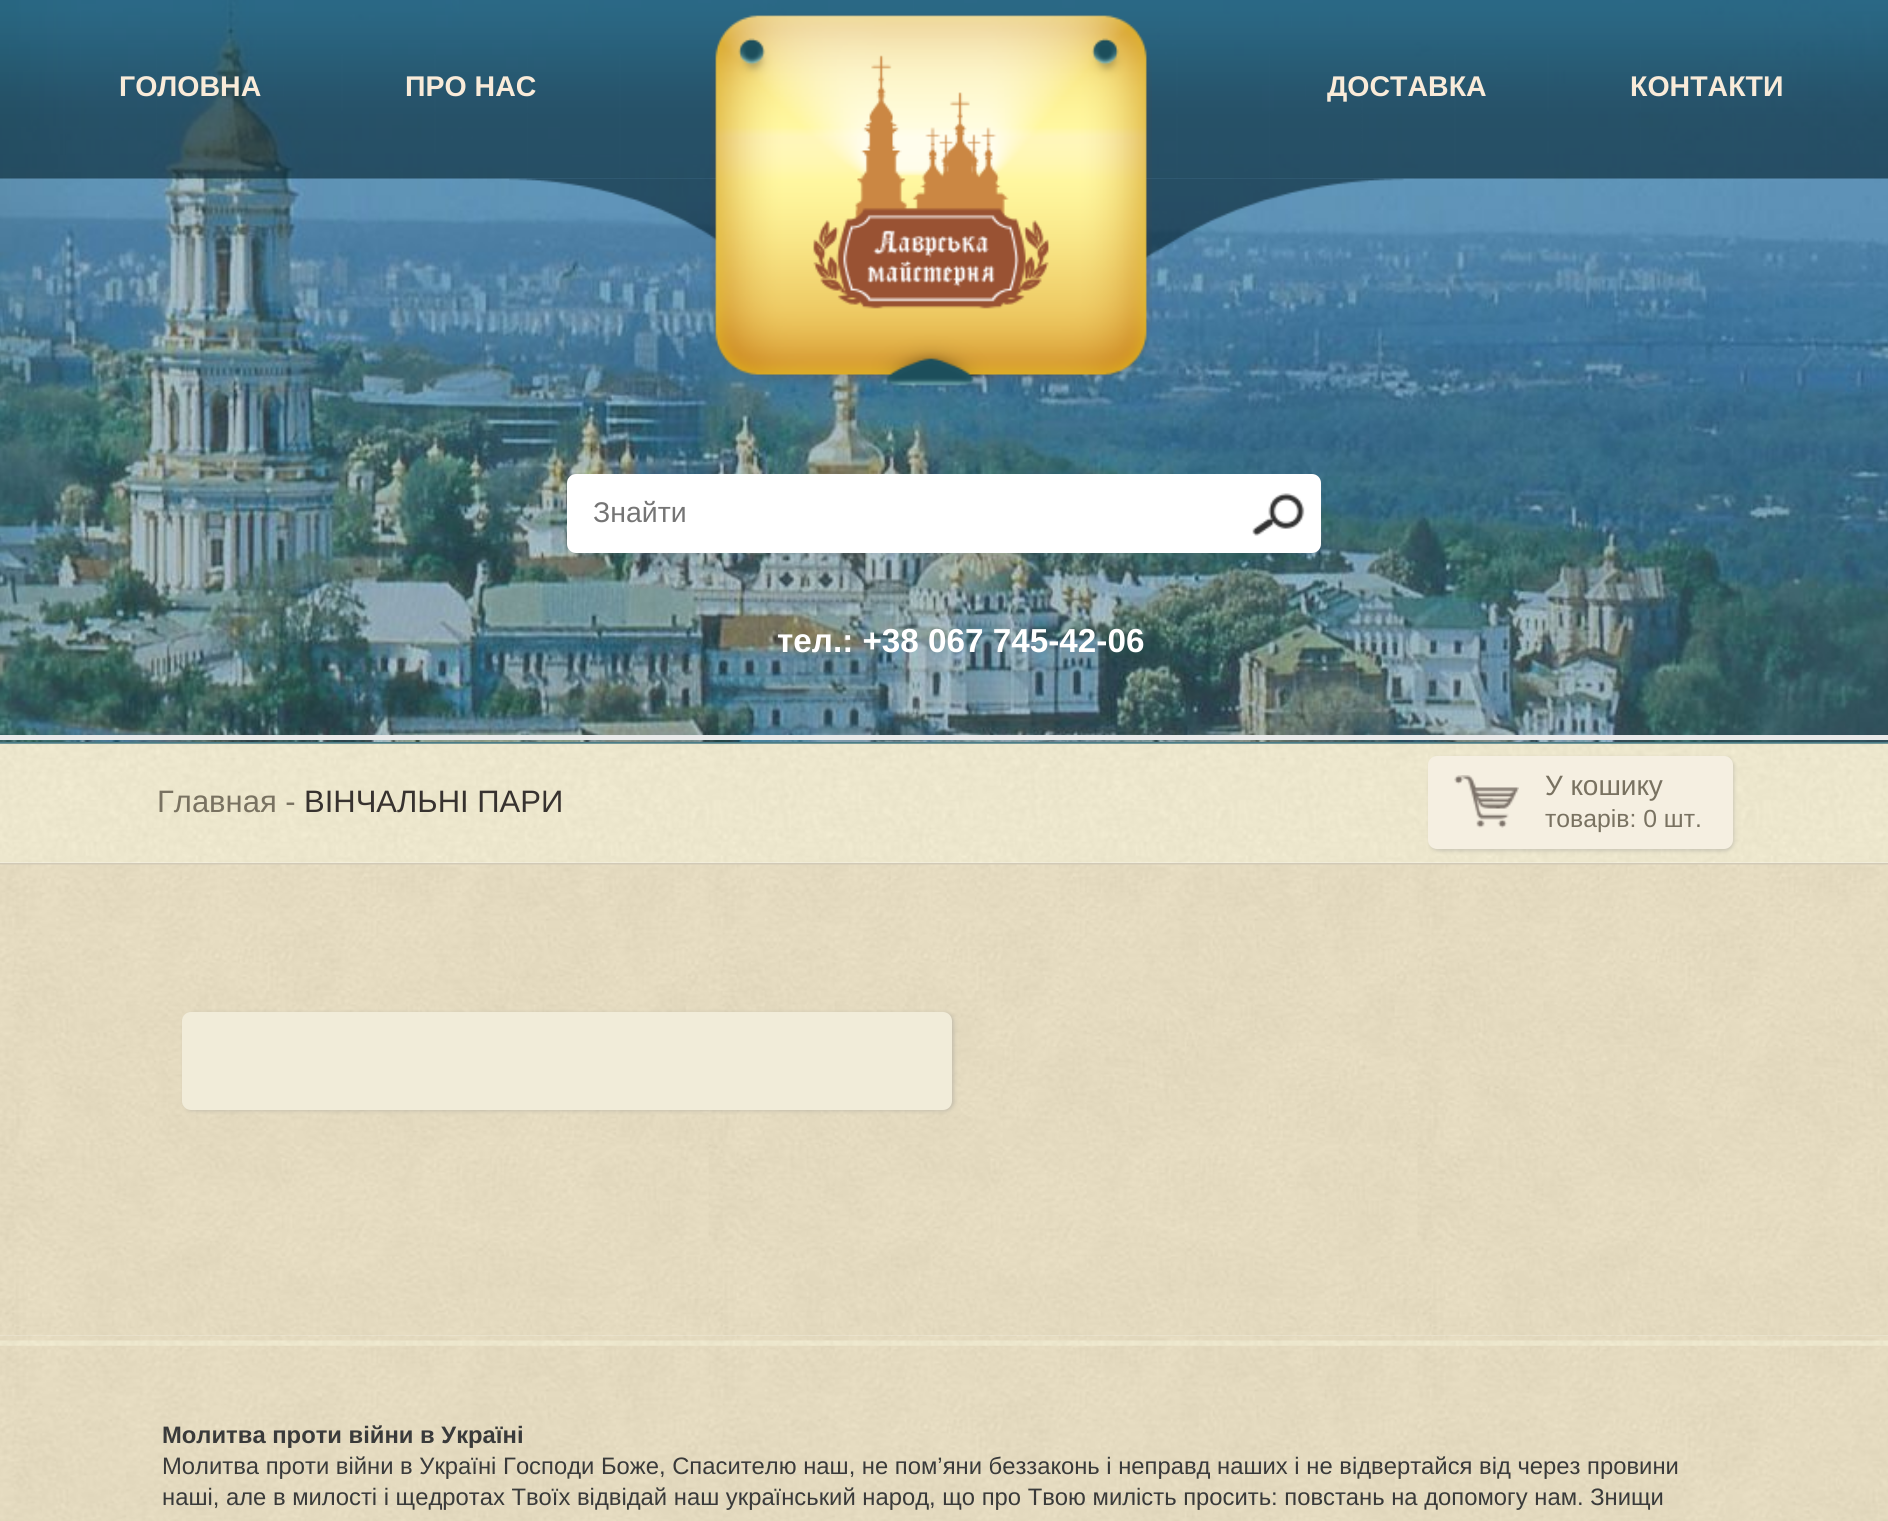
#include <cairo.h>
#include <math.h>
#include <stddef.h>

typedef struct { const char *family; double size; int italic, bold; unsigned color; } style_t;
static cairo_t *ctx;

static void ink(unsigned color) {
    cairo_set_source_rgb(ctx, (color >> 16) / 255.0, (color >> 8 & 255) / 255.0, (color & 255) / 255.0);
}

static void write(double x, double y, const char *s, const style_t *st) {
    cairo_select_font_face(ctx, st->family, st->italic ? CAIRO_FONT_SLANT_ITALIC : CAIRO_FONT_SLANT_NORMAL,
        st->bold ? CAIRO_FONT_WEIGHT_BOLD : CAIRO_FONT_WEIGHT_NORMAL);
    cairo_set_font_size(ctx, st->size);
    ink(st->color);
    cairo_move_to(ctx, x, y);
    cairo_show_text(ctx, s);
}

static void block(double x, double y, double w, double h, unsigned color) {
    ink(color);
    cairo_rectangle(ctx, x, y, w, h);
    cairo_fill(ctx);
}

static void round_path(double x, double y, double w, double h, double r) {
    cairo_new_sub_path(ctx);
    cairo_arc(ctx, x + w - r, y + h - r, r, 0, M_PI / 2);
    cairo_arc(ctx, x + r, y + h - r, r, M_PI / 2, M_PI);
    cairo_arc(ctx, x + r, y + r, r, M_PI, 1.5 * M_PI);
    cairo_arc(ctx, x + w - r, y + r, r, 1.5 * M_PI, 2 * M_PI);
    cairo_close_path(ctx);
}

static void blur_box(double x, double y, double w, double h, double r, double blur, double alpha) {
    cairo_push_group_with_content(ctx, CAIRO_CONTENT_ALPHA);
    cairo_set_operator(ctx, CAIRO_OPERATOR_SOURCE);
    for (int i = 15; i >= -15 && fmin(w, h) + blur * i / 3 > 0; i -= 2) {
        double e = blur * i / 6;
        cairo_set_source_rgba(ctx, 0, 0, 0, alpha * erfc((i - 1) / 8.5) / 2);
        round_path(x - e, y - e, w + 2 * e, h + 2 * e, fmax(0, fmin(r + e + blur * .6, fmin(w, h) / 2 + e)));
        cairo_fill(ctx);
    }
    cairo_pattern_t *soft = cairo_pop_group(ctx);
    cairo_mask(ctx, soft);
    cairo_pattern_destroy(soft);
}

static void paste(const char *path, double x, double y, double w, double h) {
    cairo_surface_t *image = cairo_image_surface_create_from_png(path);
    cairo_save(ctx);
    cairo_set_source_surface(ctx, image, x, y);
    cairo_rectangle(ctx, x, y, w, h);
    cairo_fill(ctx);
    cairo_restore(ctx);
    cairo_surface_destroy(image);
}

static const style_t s1 = {"Liberation Sans", 28.5, 0, 1, 0xf9ebd9};
static const style_t s2 = {"Liberation Sans", 28.5, 0, 0, 0x757575};
static const style_t s3 = {"Liberation Sans", 33.25, 0, 1, 0xffffff};
static const style_t s4 = {"Liberation Sans", 31, 0, 0, 0x797261};
static const style_t s5 = {"Liberation Sans", 31, 0, 0, 0x37322f};
static const style_t s6 = {"Liberation Sans", 28, 0, 0, 0x797261};
static const style_t s7 = {"Liberation Sans", 24.75, 0, 0, 0x797261};
static const style_t s8 = {"Liberation Sans", 23.8, 0, 1, 0x393a3a};
static const style_t s9 = {"Liberation Sans", 23.8, 0, 0, 0x393a3a};

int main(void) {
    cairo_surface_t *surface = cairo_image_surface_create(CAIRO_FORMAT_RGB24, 1888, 1521);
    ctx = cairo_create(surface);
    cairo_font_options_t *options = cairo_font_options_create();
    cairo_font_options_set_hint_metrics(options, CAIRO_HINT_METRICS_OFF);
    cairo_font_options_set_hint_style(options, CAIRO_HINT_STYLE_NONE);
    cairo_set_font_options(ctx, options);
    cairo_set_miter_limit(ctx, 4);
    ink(0xffffff);
    cairo_paint(ctx);
    block(0, 742, 1888, 2, 0x4b7c86);
    paste("pic1.png", 0, 0, 1888, 742);
    paste("pic2.png", 0, 0, 1888, 179);
    paste("pic3.png", 509, 178, 895, 200);
    write(119, 96, "ГОЛОВНА", &s1);
    write(405, 96, "ПРО НАС", &s1);
    paste("pic4.png", 710, 14, 442, 374);
    write(1327, 96, "ДОСТАВКА", &s1);
    write(1630, 96, "КОНТАКТИ", &s1);
    ink(0xffffff);
    round_path(567, 474, 754, 79, 9);
    cairo_fill(ctx);
    write(593, 522, "Знайти", &s2);
    paste("pic5.png", 1252, 493, 53, 43);
    write(777, 652, "тел.: +38 067 745-42-06", &s3);
    block(0, 735, 1888, 5, 0xe9e9e9);
    paste("pic6.png", 0, 743, 1888, 120);
    write(157, 812, "Главная -", &s4);
    write(304, 812, "ВІНЧАЛЬНІ ПАРИ", &s5);
    ink(0x8c8c8c);
    blur_box(1430, 758, 304, 93, 9, 2, 0.36);
    ink(0xf5efe1);
    round_path(1428, 756, 305, 93, 9);
    cairo_fill(ctx);
    paste("pic7.png", 1454, 775, 65, 53);
    write(1545, 795, "У кошику", &s6);
    write(1545, 827, "товарів: 0 шт.", &s7);
    block(0, 863, 1888, 2, 0xd2cab7);
    paste("pic8.png", 0, 864, 1888, 472);
    ink(0x8c8c8c);
    blur_box(184, 1013, 770, 98, 9, 2, 0.36);
    ink(0xf1ecd9);
    round_path(182, 1012, 770, 98, 9);
    cairo_fill(ctx);
    paste("pic9.png", 0, 1335, 1888, 186);
    paste("pic10.png", 0, 1340, 1888, 6);
    write(162, 1443, "Молитва проти війни в Україні", &s8);
    write(162, 1474, "Молитва проти війни в Україні Господи Боже, Спасителю наш, не пом’яни беззаконь і неправд наших і не відвертайся від через провини", &s9);
    write(162, 1505, "наші, але в милості і щедротах Твоїх відвідай наш український народ, що про Твою милість просить: повстань на допомогу нам. Знищи", &s9);
    cairo_surface_write_to_png(surface, "screenshot.png");
    cairo_font_options_destroy(options);
    cairo_destroy(ctx);
    cairo_surface_destroy(surface);
    return 0;
}
